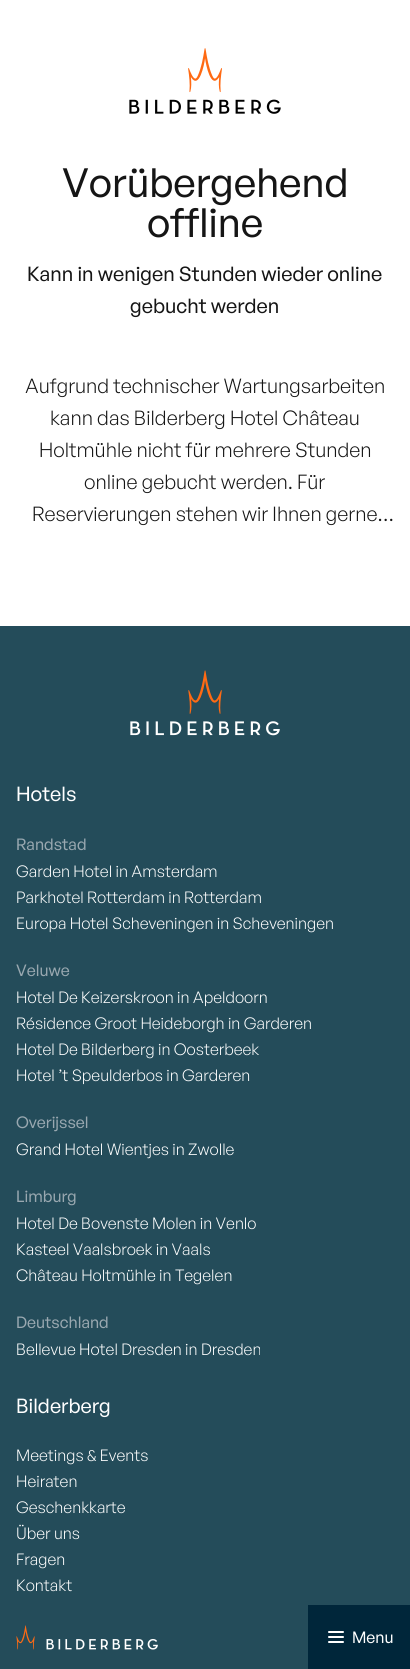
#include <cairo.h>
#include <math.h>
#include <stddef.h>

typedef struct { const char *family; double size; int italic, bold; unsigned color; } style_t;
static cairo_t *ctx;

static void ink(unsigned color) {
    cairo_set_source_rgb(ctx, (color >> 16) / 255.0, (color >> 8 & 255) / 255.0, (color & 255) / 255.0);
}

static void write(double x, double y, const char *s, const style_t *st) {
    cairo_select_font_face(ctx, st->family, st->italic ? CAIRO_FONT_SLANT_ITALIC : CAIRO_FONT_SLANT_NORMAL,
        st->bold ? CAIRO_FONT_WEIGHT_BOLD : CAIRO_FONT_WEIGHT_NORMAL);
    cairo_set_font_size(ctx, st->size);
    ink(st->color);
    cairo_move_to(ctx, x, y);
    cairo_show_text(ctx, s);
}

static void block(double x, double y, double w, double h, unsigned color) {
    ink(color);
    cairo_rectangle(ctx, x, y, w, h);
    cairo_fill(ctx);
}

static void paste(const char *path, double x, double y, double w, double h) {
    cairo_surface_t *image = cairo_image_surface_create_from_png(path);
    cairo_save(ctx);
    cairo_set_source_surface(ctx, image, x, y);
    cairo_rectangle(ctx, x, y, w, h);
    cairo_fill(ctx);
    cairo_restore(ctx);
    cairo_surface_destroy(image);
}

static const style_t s1 = {"General Sans", 40, 0, 0, 0x151515};
static const style_t s2 = {"General Sans", 20, 0, 0, 0x151515};
static const style_t s3 = {"General Sans", 16, 0, 0, 0xffffff};
static const style_t s4 = {"General Sans Light", 20, 0, 0, 0x151515};
static const style_t s5 = {"General Sans", 20, 0, 0, 0xffffff};
static const style_t s6 = {"General Sans", 16, 0, 0, 0x99a8b0};
static const style_t s7 = {"General Sans Light", 16, 0, 0, 0xffffff};

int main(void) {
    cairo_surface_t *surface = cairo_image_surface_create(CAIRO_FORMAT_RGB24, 410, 1669);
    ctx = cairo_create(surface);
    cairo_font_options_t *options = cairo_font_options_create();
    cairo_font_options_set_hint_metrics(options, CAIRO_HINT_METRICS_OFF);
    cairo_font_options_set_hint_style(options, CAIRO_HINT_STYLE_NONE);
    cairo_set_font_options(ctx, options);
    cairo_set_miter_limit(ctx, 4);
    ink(0xffffff);
    cairo_paint(ctx);
    paste("pic1.png", 129, 48, 152, 66);
    write(62, 197, "Vorübergehend", &s1);
    write(147, 237, "offline", &s1);
    write(27, 281, "Kann in wenigen Stunden wieder online", &s2);
    write(130, 313, "gebucht werden", &s2);
    block(0, 1605, 308, 64, 0x244c5a);
    paste("pic2.png", 16, 1625, 142, 25);
    block(308, 1605, 102, 64, 0x00263a);
    cairo_new_path(ctx);
    cairo_move_to(ctx, 329, 1642);
    cairo_line_to(ctx, 343, 1642);
    cairo_move_to(ctx, 329, 1637);
    cairo_line_to(ctx, 343, 1637);
    cairo_move_to(ctx, 329, 1632);
    cairo_line_to(ctx, 343, 1632);
    ink(0xffffff);
    cairo_set_line_cap(ctx, CAIRO_LINE_CAP_ROUND);
    cairo_set_line_join(ctx, CAIRO_LINE_JOIN_ROUND);
    cairo_stroke(ctx);
    write(352, 1643, "Menu", &s3);
    write(25, 393, "Aufgrund technischer Wartungsarbeiten", &s4);
    write(50, 425, "kann das Bilderberg Hotel Château", &s4);
    write(39, 457, "Holtmühle nicht für mehrere Stunden", &s4);
    write(84, 489, "online gebucht werden. Für", &s4);
    write(32, 521, "Reservierungen stehen wir Ihnen gerne…", &s4);
    block(0, 626, 410, 979, 0x244c5a);
    paste("pic3.png", 130, 670, 150, 66);
    write(16, 801, "Hotels", &s5);
    write(16, 850, "Randstad", &s6);
    write(16, 877, "Garden Hotel in Amsterdam", &s7);
    write(16, 903, "Parkhotel Rotterdam in Rotterdam", &s7);
    write(16, 929, "Europa Hotel Scheveningen in Scheveningen", &s7);
    write(16, 976, "Veluwe", &s6);
    write(16, 1003, "Hotel De Keizerskroon in Apeldoorn", &s7);
    write(16, 1029, "Résidence Groot Heideborgh in Garderen", &s7);
    write(16, 1055, "Hotel De Bilderberg in Oosterbeek", &s7);
    write(16, 1081, "Hotel ’t Speulderbos in Garderen", &s7);
    write(16, 1128, "Overijssel", &s6);
    write(16, 1155, "Grand Hotel Wientjes in Zwolle", &s7);
    write(16, 1202, "Limburg", &s6);
    write(16, 1229, "Hotel De Bovenste Molen in Venlo", &s7);
    write(16, 1255, "Kasteel Vaalsbroek in Vaals", &s7);
    write(16, 1281, "Château Holtmühle in Tegelen", &s7);
    write(16, 1328, "Deutschland", &s6);
    write(16, 1355, "Bellevue Hotel Dresden in Dresden", &s7);
    write(16, 1413, "Bilderberg", &s5);
    write(16, 1461, "Meetings & Events", &s7);
    write(16, 1487, "Heiraten", &s7);
    write(16, 1513, "Geschenkkarte", &s7);
    write(16, 1539, "Über uns", &s7);
    write(16, 1565, "Fragen", &s7);
    write(16, 1591, "Kontakt", &s7);
    cairo_surface_write_to_png(surface, "screenshot.png");
    cairo_font_options_destroy(options);
    cairo_destroy(ctx);
    cairo_surface_destroy(surface);
    return 0;
}
